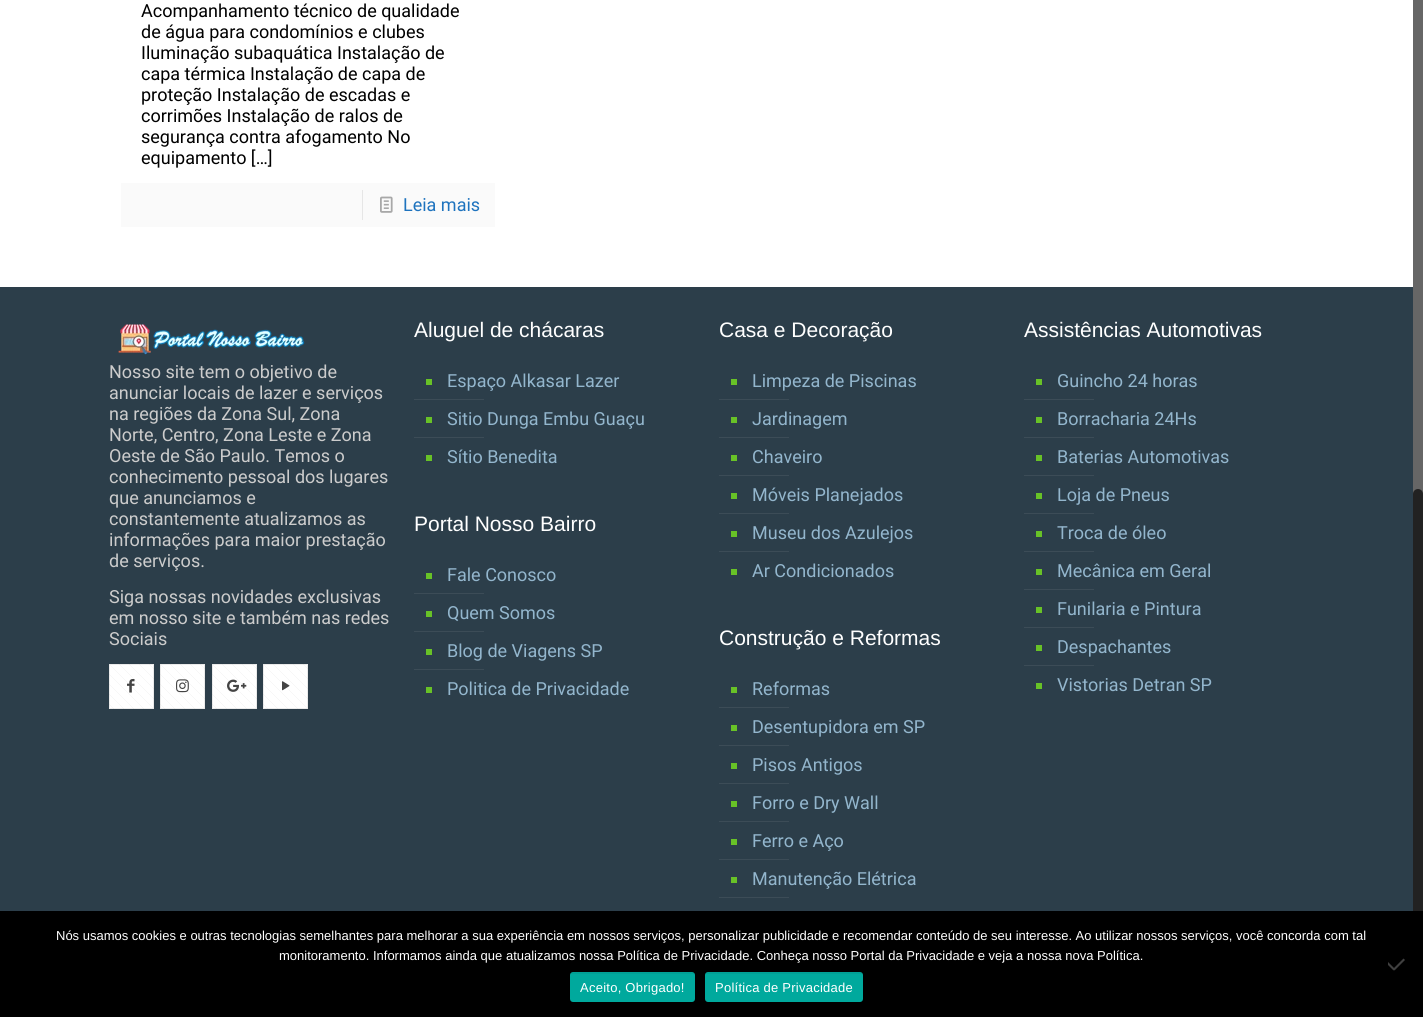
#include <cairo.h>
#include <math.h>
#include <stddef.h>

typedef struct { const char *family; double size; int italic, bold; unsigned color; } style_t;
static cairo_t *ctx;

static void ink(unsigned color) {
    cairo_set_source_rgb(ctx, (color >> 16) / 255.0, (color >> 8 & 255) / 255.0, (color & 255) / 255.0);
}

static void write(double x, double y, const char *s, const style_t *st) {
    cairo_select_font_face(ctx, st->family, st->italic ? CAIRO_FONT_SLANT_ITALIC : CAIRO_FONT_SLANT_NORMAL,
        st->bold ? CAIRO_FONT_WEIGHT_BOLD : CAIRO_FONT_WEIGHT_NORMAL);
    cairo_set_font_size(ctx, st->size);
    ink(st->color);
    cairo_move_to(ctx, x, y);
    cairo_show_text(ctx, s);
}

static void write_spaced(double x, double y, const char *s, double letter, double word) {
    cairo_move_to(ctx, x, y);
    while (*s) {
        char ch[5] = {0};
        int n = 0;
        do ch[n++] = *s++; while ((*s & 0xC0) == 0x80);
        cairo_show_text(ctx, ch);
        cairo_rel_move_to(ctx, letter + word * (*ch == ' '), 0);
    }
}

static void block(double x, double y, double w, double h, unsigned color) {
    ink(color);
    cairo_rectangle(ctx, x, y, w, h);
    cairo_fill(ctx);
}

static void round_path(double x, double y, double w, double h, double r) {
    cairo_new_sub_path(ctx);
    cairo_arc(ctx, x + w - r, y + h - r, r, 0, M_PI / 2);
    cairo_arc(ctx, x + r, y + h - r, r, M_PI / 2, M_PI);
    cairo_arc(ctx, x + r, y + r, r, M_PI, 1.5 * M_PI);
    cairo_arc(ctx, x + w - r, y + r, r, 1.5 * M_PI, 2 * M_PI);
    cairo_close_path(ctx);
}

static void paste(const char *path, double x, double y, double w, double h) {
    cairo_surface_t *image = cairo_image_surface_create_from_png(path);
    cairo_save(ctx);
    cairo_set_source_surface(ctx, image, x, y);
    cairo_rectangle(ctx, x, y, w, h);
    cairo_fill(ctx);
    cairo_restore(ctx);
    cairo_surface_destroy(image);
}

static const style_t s1 = {"Roboto", 18, 0, 0, 0x000000};
static const style_t s2 = {"Roboto", 18, 0, 0, 0x1e73be};
static const style_t s3 = {"Roboto", 18, 0, 0, 0xcccccc};
static const style_t s4 = {"Liberation Sans", 21, 0, 0, 0xffffff};
static const style_t s5 = {"Roboto", 18, 0, 0, 0x93b6cd};
static const style_t s6 = {"Liberation Sans", 13, 0, 0, 0xffffff};

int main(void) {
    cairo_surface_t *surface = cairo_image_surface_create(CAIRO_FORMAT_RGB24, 1423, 1017);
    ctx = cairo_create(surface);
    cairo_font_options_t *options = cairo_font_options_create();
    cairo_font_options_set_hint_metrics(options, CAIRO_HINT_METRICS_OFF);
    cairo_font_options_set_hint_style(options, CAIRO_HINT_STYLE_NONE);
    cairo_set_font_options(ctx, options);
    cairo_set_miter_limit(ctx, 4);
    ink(0xffffff);
    cairo_paint(ctx);
    write(141, 17, "Acompanhamento técnico de qualidade", &s1);
    write(141, 38, "de água para condomínios e clubes", &s1);
    write(141, 59, "Iluminação subaquática Instalação de", &s1);
    write(141, 80, "capa térmica Instalação de capa de", &s1);
    write(141, 101, "proteção Instalação de escadas e", &s1);
    write(141, 122, "corrimões Instalação de ralos de", &s1);
    write(141, 143, "segurança contra afogamento No", &s1);
    write(141, 164, "equipamento […]", &s1);
    block(121, 183, 374, 44, 0xfafafa);
    block(362, 190, 1, 30, 0xe6e6e6);
    paste("pic1.png", 380, 196, 13, 17);
    write(403, 211, "Leia mais", &s2);
    block(0, 287, 1413, 624, 0x2c3e4a);
    paste("pic2.png", 118, 324, 187, 31);
    write(109, 378, "Nosso site tem o objetivo de", &s3);
    write(109, 399, "anunciar locais de lazer e serviços", &s3);
    write(109, 420, "na regiões da Zona Sul, Zona", &s3);
    write(109, 441, "Norte, Centro, Zona Leste e Zona", &s3);
    write(109, 462, "Oeste de São Paulo. Temos o", &s3);
    write(109, 483, "conhecimento pessoal dos lugares", &s3);
    write(109, 504, "que anunciamos e", &s3);
    write(109, 525, "constantemente atualizamos as", &s3);
    write(109, 546, "informações para maior prestação", &s3);
    write(109, 567, "de serviços.", &s3);
    write(109, 603, "Siga nossas novidades exclusivas", &s3);
    write(109, 624, "em nosso site e também nas redes", &s3);
    write(109, 645, "Sociais", &s3);
    block(109, 664, 45, 45, 0xffffff);
    paste("pic3.png", 109, 664, 45, 45);
    cairo_rectangle(ctx, 109.5, 664.5, 44, 44);
    cairo_set_source_rgba(ctx, 0, 0, 0, 0.08);
    cairo_set_line_width(ctx, 1);
    cairo_stroke(ctx);
    paste("pic4.png", 127, 679, 8, 14);
    block(160, 664, 45, 45, 0xffffff);
    paste("pic3.png", 160, 664, 45, 45);
    cairo_rectangle(ctx, 160.5, 664.5, 44, 44);
    cairo_set_source_rgba(ctx, 0, 0, 0, 0.08);
    cairo_stroke(ctx);
    paste("pic5.png", 176, 679, 13, 14);
    block(212, 664, 45, 45, 0xffffff);
    paste("pic3.png", 212, 664, 45, 45);
    cairo_rectangle(ctx, 212.5, 664.5, 44, 44);
    cairo_set_source_rgba(ctx, 0, 0, 0, 0.08);
    cairo_stroke(ctx);
    paste("pic6.png", 227, 679, 20, 13);
    block(263, 664, 45, 45, 0xffffff);
    paste("pic3.png", 263, 664, 45, 45);
    cairo_rectangle(ctx, 263.5, 664.5, 44, 44);
    cairo_set_source_rgba(ctx, 0, 0, 0, 0.08);
    cairo_stroke(ctx);
    paste("pic7.png", 282, 681, 8, 10);
    write(414, 337, "Aluguel de chácaras", &s4);
    block(426, 379, 6, 6, 0x68c227);
    write(447, 387, "Espaço Alkasar Lazer", &s5);
    block(414, 399, 70, 1, 0x3c4c57);
    block(426, 417, 6, 6, 0x68c227);
    write(447, 425, "Sitio Dunga Embu Guaçu", &s5);
    block(414, 437, 70, 1, 0x3c4c57);
    block(426, 455, 6, 6, 0x68c227);
    write(447, 463, "Sítio Benedita", &s5);
    write(414, 531, "Portal Nosso Bairro", &s4);
    block(426, 573, 6, 6, 0x68c227);
    write(447, 581, "Fale Conosco", &s5);
    block(414, 593, 70, 1, 0x3c4c57);
    block(426, 611, 6, 6, 0x68c227);
    write(447, 619, "Quem Somos", &s5);
    block(414, 631, 70, 1, 0x3c4c57);
    block(426, 649, 6, 6, 0x68c227);
    write(447, 657, "Blog de Viagens SP", &s5);
    block(414, 669, 70, 1, 0x3c4c57);
    block(426, 687, 6, 6, 0x68c227);
    write(447, 695, "Politica de Privacidade", &s5);
    write(719, 337, "Casa e Decoração", &s4);
    block(731, 379, 6, 6, 0x68c227);
    write(752, 387, "Limpeza de Piscinas", &s5);
    block(719, 399, 70, 1, 0x3c4c57);
    block(731, 417, 6, 6, 0x68c227);
    write(752, 425, "Jardinagem", &s5);
    block(719, 437, 70, 1, 0x3c4c57);
    block(731, 455, 6, 6, 0x68c227);
    write(752, 463, "Chaveiro", &s5);
    block(719, 475, 70, 1, 0x3c4c57);
    block(731, 493, 6, 6, 0x68c227);
    write(752, 501, "Móveis Planejados", &s5);
    block(719, 513, 70, 1, 0x3c4c57);
    block(731, 531, 6, 6, 0x68c227);
    write(752, 539, "Museu dos Azulejos", &s5);
    block(719, 551, 70, 1, 0x3c4c57);
    block(731, 569, 6, 6, 0x68c227);
    write(752, 577, "Ar Condicionados", &s5);
    write(719, 645, "Construção e Reformas", &s4);
    block(731, 687, 6, 6, 0x68c227);
    write(752, 695, "Reformas", &s5);
    block(719, 707, 70, 1, 0x3c4c57);
    block(731, 725, 6, 6, 0x68c227);
    write(752, 733, "Desentupidora em SP", &s5);
    block(719, 745, 70, 1, 0x3c4c57);
    block(731, 763, 6, 6, 0x68c227);
    write(752, 771, "Pisos Antigos", &s5);
    block(719, 783, 70, 1, 0x3c4c57);
    block(731, 801, 6, 6, 0x68c227);
    write(752, 809, "Forro e Dry Wall", &s5);
    block(719, 821, 70, 1, 0x3c4c57);
    block(731, 839, 6, 6, 0x68c227);
    write(752, 847, "Ferro e Aço", &s5);
    block(719, 859, 70, 1, 0x3c4c57);
    block(731, 877, 6, 6, 0x68c227);
    write(752, 885, "Manutenção Elétrica", &s5);
    block(719, 897, 70, 1, 0x3c4c57);
    write(1024, 337, "Assistências Automotivas", &s4);
    block(1036, 379, 6, 6, 0x68c227);
    write(1057, 387, "Guincho 24 horas", &s5);
    block(1024, 399, 70, 1, 0x3c4c57);
    block(1036, 417, 6, 6, 0x68c227);
    write(1057, 425, "Borracharia 24Hs", &s5);
    block(1024, 437, 70, 1, 0x3c4c57);
    block(1036, 455, 6, 6, 0x68c227);
    write(1057, 463, "Baterias Automotivas", &s5);
    block(1024, 475, 70, 1, 0x3c4c57);
    block(1036, 493, 6, 6, 0x68c227);
    write(1057, 501, "Loja de Pneus", &s5);
    block(1024, 513, 70, 1, 0x3c4c57);
    block(1036, 531, 6, 6, 0x68c227);
    write(1057, 539, "Troca de óleo", &s5);
    block(1024, 551, 70, 1, 0x3c4c57);
    block(1036, 569, 6, 6, 0x68c227);
    write(1057, 577, "Mecânica em Geral", &s5);
    block(1024, 589, 70, 1, 0x3c4c57);
    block(1036, 607, 6, 6, 0x68c227);
    write(1057, 615, "Funilaria e Pintura", &s5);
    block(1024, 627, 70, 1, 0x3c4c57);
    block(1036, 645, 6, 6, 0x68c227);
    write(1057, 653, "Despachantes", &s5);
    block(1024, 665, 70, 1, 0x3c4c57);
    block(1036, 683, 6, 6, 0x68c227);
    write(1057, 691, "Vistorias Detran SP", &s5);
    block(1413, 0, 10, 494, 0x666666);
    ink(0x222222);
    round_path(1413, 489, 10, 491, 5);
    cairo_fill(ctx);
    block(0, 911, 1423, 106, 0x000000);
    write(56, 940, "Nós usamos cookies e outras tecnologias semelhantes para melhorar a sua experiência em nossos serviços, personalizar publicidade e recomendar conteúdo de seu interesse. Ao utilizar nossos serviços, você concorda com tal", &s6);
    write(279, 960, "monitoramento. Informamos ainda que atualizamos nossa Política de Privacidade. Conheça nosso Portal da Privacidade e veja a nossa nova Política.", &s6);
    ink(0x404040);
    cairo_new_path(ctx);
    cairo_move_to(ctx, 1403.5, 958.5);
    cairo_line_to(ctx, 1405, 960);
    cairo_line_to(ctx, 1394.5, 970.5);
    cairo_line_to(ctx, 1393, 969);
    cairo_close_path(ctx);
    cairo_fill(ctx);
    cairo_new_path(ctx);
    cairo_move_to(ctx, 1388, 965);
    cairo_line_to(ctx, 1388, 962);
    cairo_line_to(ctx, 1395, 969);
    cairo_line_to(ctx, 1393.5, 970.5);
    cairo_close_path(ctx);
    cairo_fill(ctx);
    ink(0x00a99d);
    round_path(570, 972, 125, 30, 3);
    cairo_fill(ctx);
    paste("pic8.png", 571, 972, 123, 2);
    ink(0xffffff);
    write_spaced(580, 992, "Aceito, Obrigado!", 0.25, 0);
    ink(0x00a99d);
    round_path(705, 972, 158, 30, 3);
    cairo_fill(ctx);
    paste("pic9.png", 706, 972, 156, 2);
    ink(0xffffff);
    write_spaced(715, 992, "Política de Privacidade", 0.25, 0);
    cairo_surface_write_to_png(surface, "screenshot.png");
    cairo_font_options_destroy(options);
    cairo_destroy(ctx);
    cairo_surface_destroy(surface);
    return 0;
}
